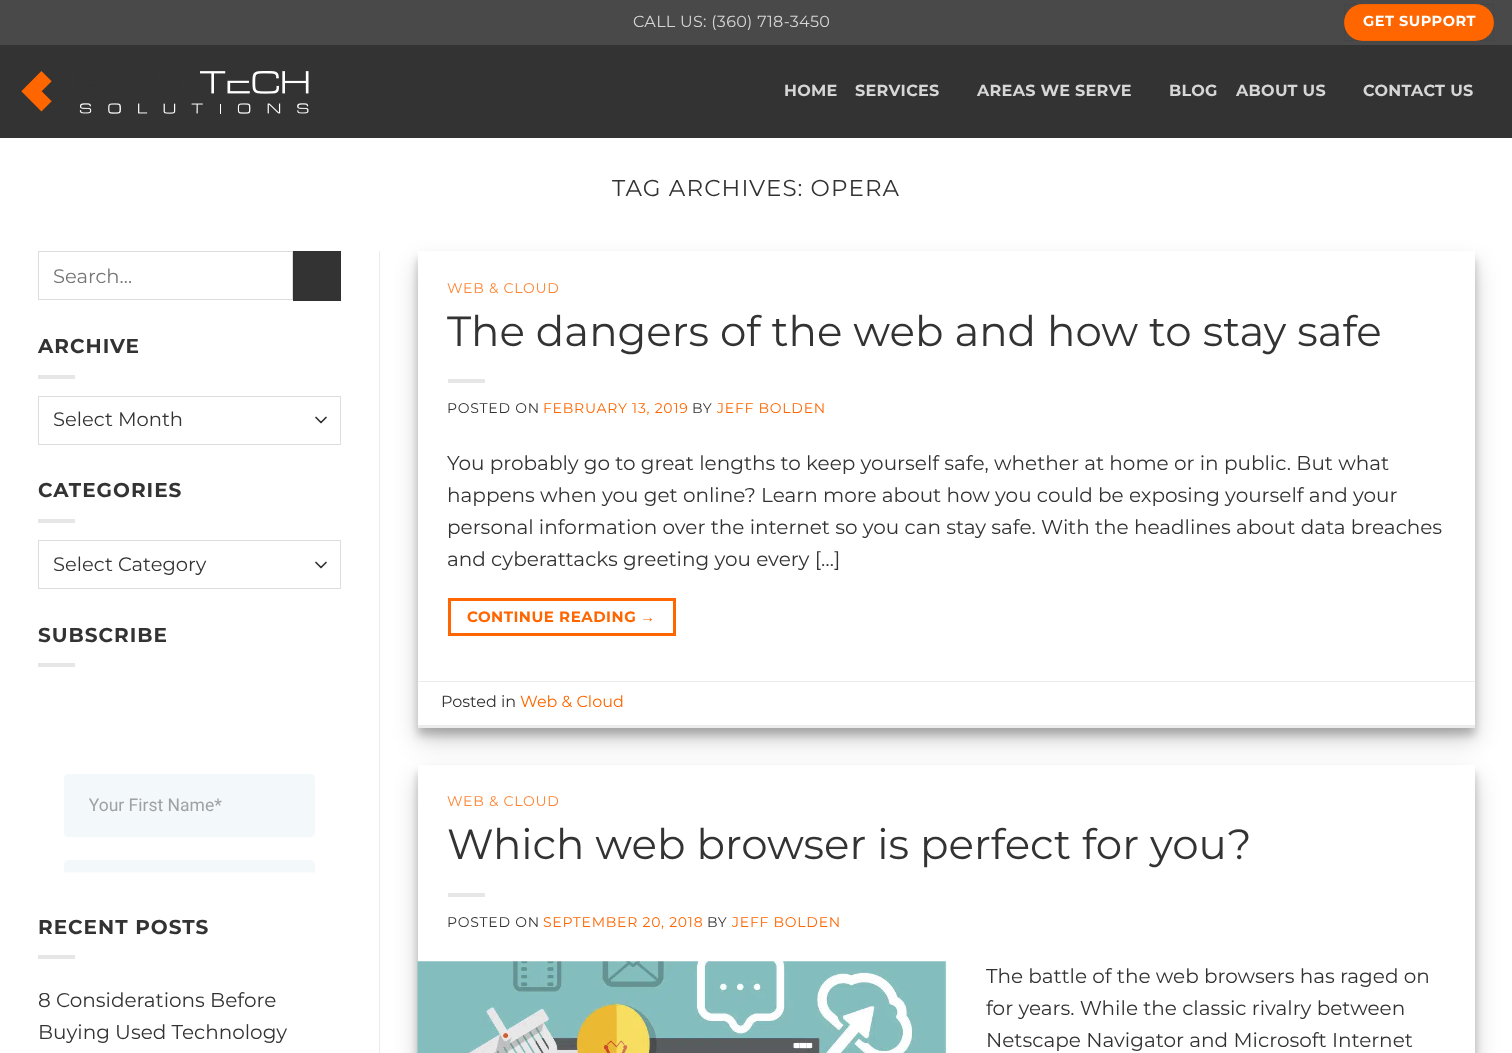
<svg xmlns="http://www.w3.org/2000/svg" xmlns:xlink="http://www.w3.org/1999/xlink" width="1512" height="1053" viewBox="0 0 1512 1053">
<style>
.cls-1{font:16px Montserrat;letter-spacing:0.3px;fill:#d6d6d6}
.cls-2{font:bold 14.5px Montserrat;letter-spacing:0.5px;fill:#ffffff}
.cls-3{font:bold 16px Montserrat;letter-spacing:0.3px;fill:#d6d6d6}
.cls-4{font:23px Montserrat;letter-spacing:1.1px;fill:#333333}
.cls-5{font:19.5px Montserrat;fill:#757575}
.cls-6{font:bold 20px Montserrat;letter-spacing:1px;fill:#333333}
.cls-7{font:19.5px Montserrat;fill:#333333}
.cls-8{font:20px Montserrat;fill:#333333}
.cls-9{font:14px Montserrat;letter-spacing:0.75px;fill:#ff8533}
.cls-10{font:42px Montserrat;fill:#333333}
.cls-11{font:14px Montserrat;letter-spacing:0.75px;fill:#333333}
.cls-12{font:14px Montserrat;letter-spacing:0.75px;fill:#ff6600}
.cls-13{font:bold 15px Montserrat;letter-spacing:0.5px;fill:#ff6600}
.cls-14{font:bold 15px Liberation Sans;letter-spacing:0.5px;fill:#ff6600}
.cls-15{font:16px Montserrat;fill:#333333}
.cls-16{font:16px Montserrat;fill:#ff6600}
</style>
<defs>
<clipPath id="clip1"><path d="M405 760H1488V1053H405ZM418 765H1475V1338H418Z" clip-rule="evenodd"/></clipPath>
<clipPath id="clip2"><path d="M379 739H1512V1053H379ZM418 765H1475V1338H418Z" clip-rule="evenodd"/></clipPath>
</defs>
<rect width="100%" height="100%" fill="#ffffff"/>
<rect fill="#494949" x="0" y="0" width="1512" height="45"/>
<rect fill="#ff6600" x="1344" y="4" width="150" height="37" rx="18.5"/>
<rect fill="none" stroke="#000000" stroke-opacity="0.05" x="1344.5" y="4.5" width="149" height="36"/>
<rect fill="#333333" x="0" y="45" width="1512" height="93"/>
<image xlink:href="image0.png" x="21" y="71" width="288" height="43"/>
<rect fill="none" stroke="#dddddd" x="38.5" y="251.5" width="254" height="48"/>
<rect fill="#333333" stroke="#303030" x="293.5" y="251.5" width="47" height="49"/>
<rect fill="#e6e6e6" x="38" y="375" width="37" height="4"/>
<path fill="none" stroke="#333333" stroke-width="1.7" stroke-linecap="round" stroke-linejoin="round" d="M316 417.5L321 422.5L326 417.5"/>
<rect fill="none" stroke="#dddddd" x="38.5" y="396.5" width="302" height="48"/>
<rect fill="#e6e6e6" x="38" y="519" width="37" height="4"/>
<path fill="none" stroke="#333333" stroke-width="1.7" stroke-linecap="round" stroke-linejoin="round" d="M316 562.5L321 567.5L326 562.5"/>
<rect fill="none" stroke="#dddddd" x="38.5" y="540.5" width="302" height="48"/>
<rect fill="#e6e6e6" x="38" y="663" width="37" height="4"/>
<image xlink:href="image1.png" x="64" y="774" width="251" height="99"/>
<rect fill="#e6e6e6" x="38" y="955" width="37" height="4"/>
<rect fill="#ececec" x="379" y="251" width="1" height="802"/>
<rect fill="#000000" fill-opacity="0.22" filter="blur(4px)" x="418" y="259" width="1057" height="476"/>
<rect fill="#000000" fill-opacity="0.19" filter="blur(12.5px)" x="418" y="264" width="1057" height="476"/>
<rect fill="#ffffff" x="418" y="251" width="1057" height="474"/>
<rect fill="#e6e6e6" x="448" y="379" width="37" height="4"/>
<rect fill="none" stroke="#ff6600" stroke-width="3" x="449.5" y="599.5" width="225" height="35"/>
<rect fill="#ececec" x="418" y="681" width="1057" height="1"/>
<rect fill="#ececec" x="418" y="725" width="1057" height="3"/>
<g clip-path="url(#clip1)">
<rect fill="#000000" fill-opacity="0.22" filter="blur(4px)" x="418" y="773" width="1057" height="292"/>
</g>
<g clip-path="url(#clip2)">
<rect fill="#000000" fill-opacity="0.19" filter="blur(12.5px)" x="418" y="778" width="1057" height="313"/>
</g>
<rect fill="#e6e6e6" x="448" y="893" width="37" height="4"/>
<image xlink:href="image2.png" x="417" y="961" width="530" height="92"/>
<text class="cls-1" x="633" y="27">CALL US: (360) 718-3450</text>
<text class="cls-2" x="1363" y="26">GET SUPPORT</text>
<text class="cls-3" x="784" y="96">HOME</text>
<text class="cls-3" x="855" y="96">SERVICES</text>
<text class="cls-3" x="977" y="96">AREAS WE SERVE</text>
<text class="cls-3" x="1169" y="96">BLOG</text>
<text class="cls-3" x="1236" y="96">ABOUT US</text>
<text class="cls-3" x="1363" y="96">CONTACT US</text>
<text class="cls-4" x="612" y="196">TAG ARCHIVES: OPERA</text>
<text class="cls-5" x="53" y="283">Search…</text>
<text class="cls-6" x="38" y="353">ARCHIVE</text>
<text class="cls-7" x="53" y="426">Select Month</text>
<text class="cls-6" x="38" y="497">CATEGORIES</text>
<text class="cls-7" x="53" y="571">Select Category</text>
<text class="cls-6" x="38" y="642">SUBSCRIBE</text>
<text class="cls-6" x="38" y="934">RECENT POSTS</text>
<text class="cls-8"><tspan x="38" y="1007">8 Considerations Before</tspan><tspan x="38" y="1039">Buying Used Technology</tspan></text>
<text class="cls-9" x="447" y="293">WEB &amp; CLOUD</text>
<text class="cls-10" x="447" y="346">The dangers of the web and how to stay safe</text>
<text class="cls-11" x="447" y="413">POSTED ON</text>
<text class="cls-12" x="543" y="413">FEBRUARY 13, 2019</text>
<text class="cls-11" x="692" y="413">BY</text>
<text class="cls-12" x="717" y="413">JEFF BOLDEN</text>
<text class="cls-8"><tspan x="447" y="470">You probably go to great lengths to keep yourself safe, whether at home or in public. But what</tspan><tspan x="447" y="502">happens when you get online? Learn more about how you could be exposing yourself and your</tspan><tspan x="447" y="534">personal information over the internet so you can stay safe. With the headlines about data breaches</tspan><tspan x="447" y="566">and cyberattacks greeting you every […]</tspan></text>
<text class="cls-13" x="467" y="622">CONTINUE READING</text>
<text class="cls-14" x="640" y="622">→</text>
<text class="cls-15" x="441" y="707">Posted in</text>
<text class="cls-16" x="520" y="707">Web &amp; Cloud</text>
<text class="cls-9" x="447" y="806">WEB &amp; CLOUD</text>
<text class="cls-10" x="447" y="859">Which web browser is perfect for you?</text>
<text class="cls-11" x="447" y="927">POSTED ON</text>
<text class="cls-12" x="543" y="927">SEPTEMBER 20, 2018</text>
<text class="cls-11" x="707" y="927">BY</text>
<text class="cls-12" x="732" y="927">JEFF BOLDEN</text>
<text class="cls-8"><tspan x="986" y="983">The battle of the web browsers has raged on</tspan><tspan x="986" y="1015">for years. While the classic rivalry between</tspan><tspan x="986" y="1047">Netscape Navigator and Microsoft Internet</tspan></text>
</svg>
